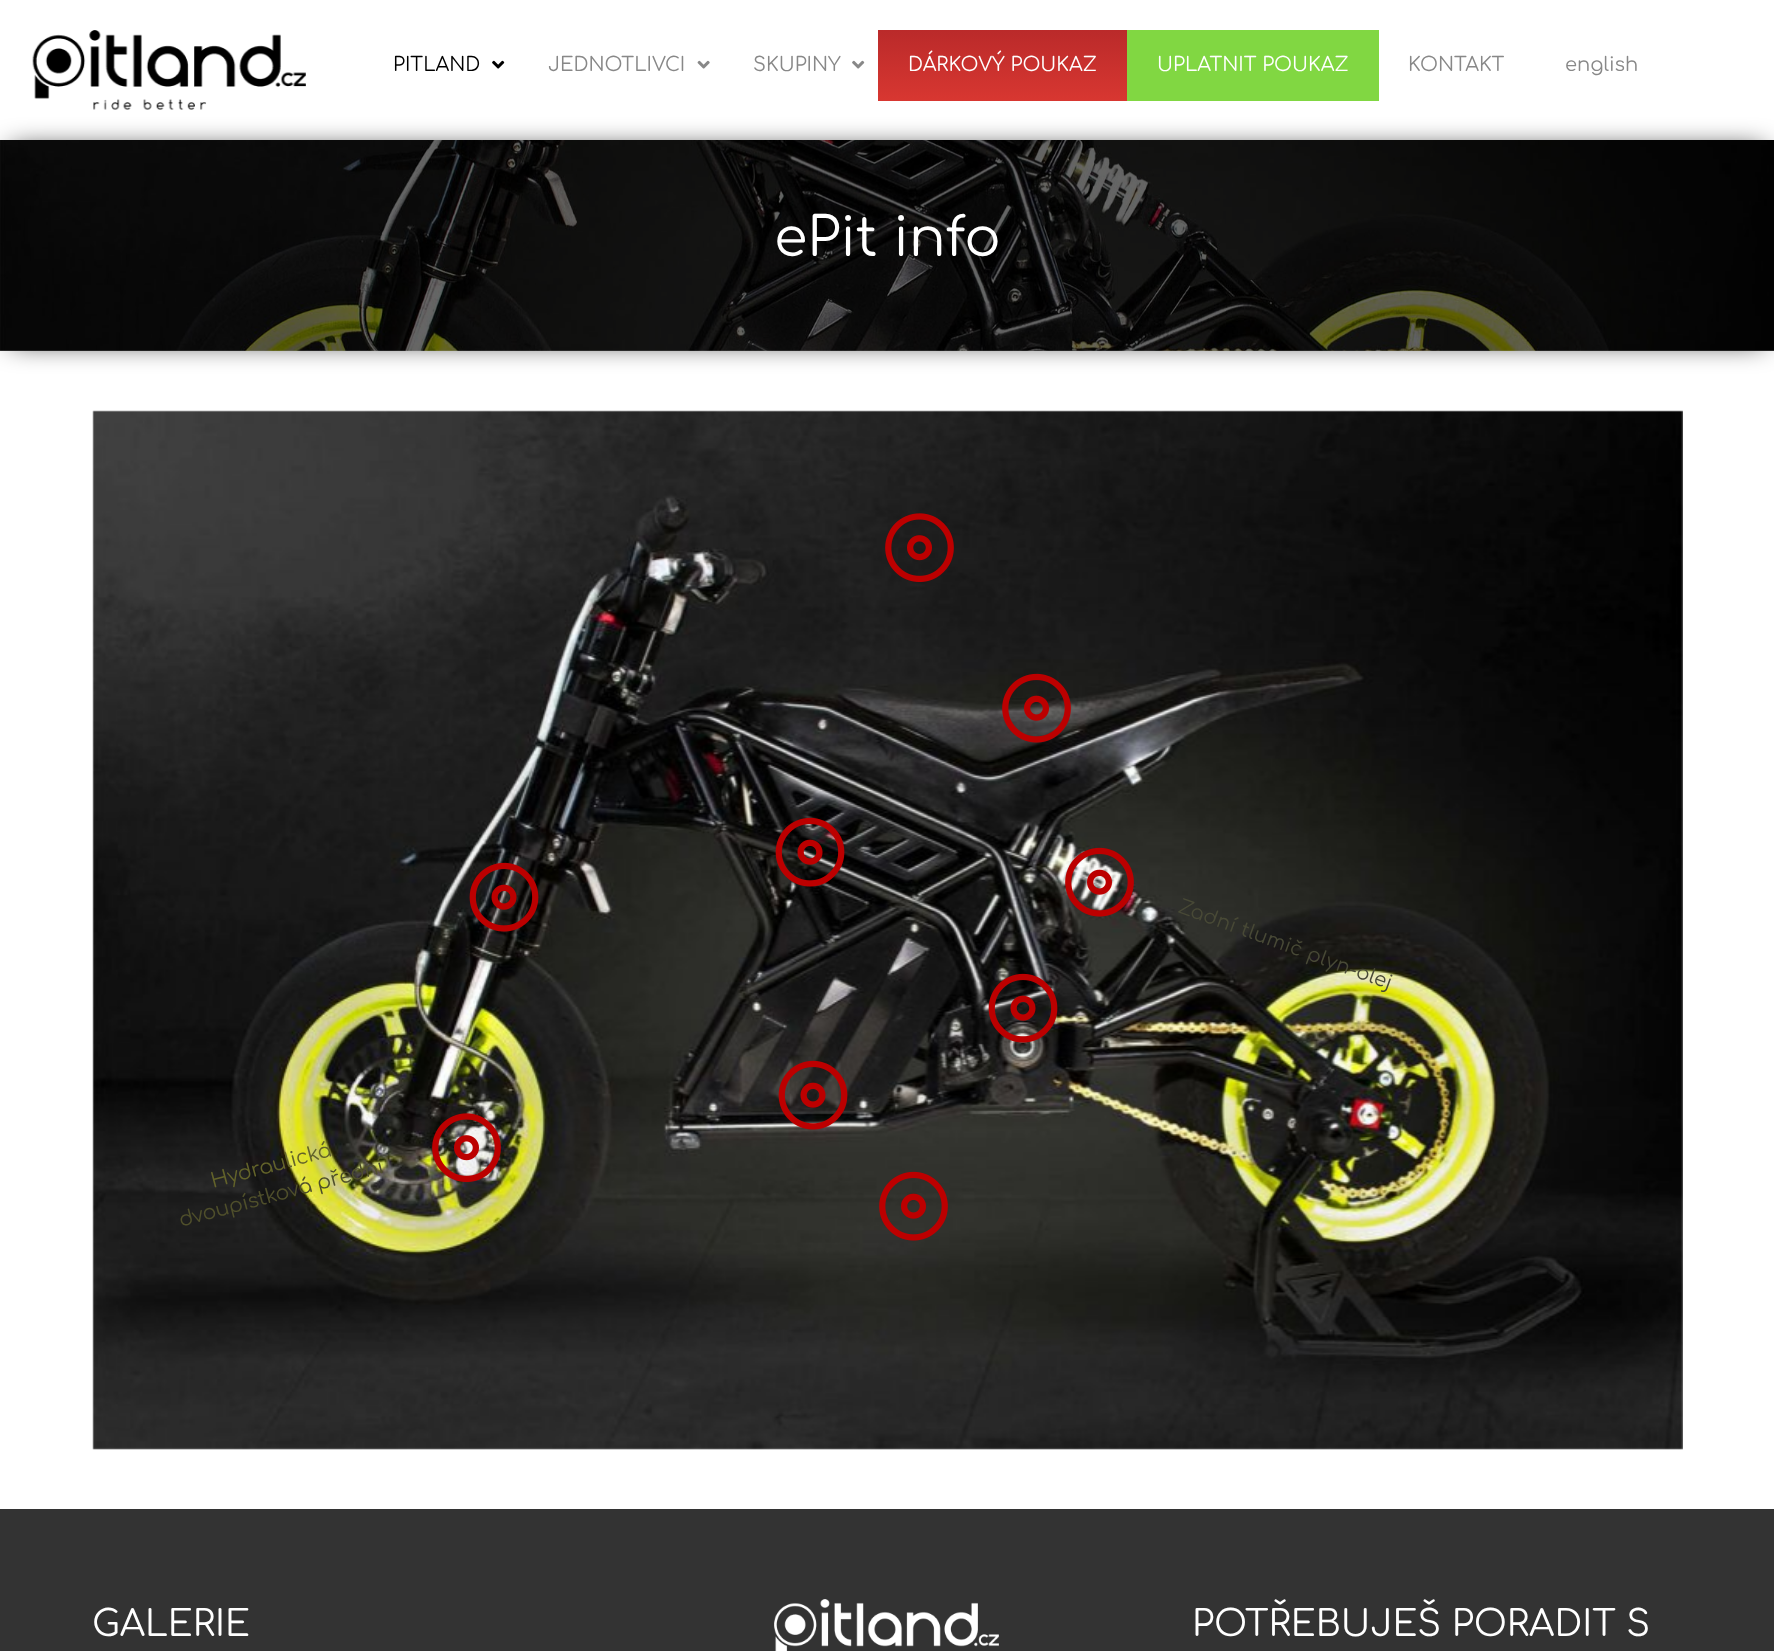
<svg xmlns="http://www.w3.org/2000/svg" xmlns:xlink="http://www.w3.org/1999/xlink" width="1774" height="1651" viewBox="0 0 1774 1651">
<style>
.cls-1{font:19.5px Comfortaa;fill:#000000}
.cls-2{font:19.5px Comfortaa;fill:#888888}
.cls-3{font:19.5px Comfortaa;fill:#ffffff}
.cls-4{font:54px Comfortaa;fill:#ffffff}
.cls-5{font:19.75px Comfortaa;letter-spacing:0.25px;fill:#484936}
.cls-6{font:20.4px Comfortaa;letter-spacing:-0.3px;fill:#63632a}
.cls-7{font:20.4px Comfortaa;letter-spacing:-0.3px;fill:#4f4f2b}
.cls-8{font:36px Comfortaa;fill:#ffffff}
</style>
<defs>
<linearGradient id="g1" gradientUnits="userSpaceOnUse" x1="1002" y1="30" x2="1002" y2="101"><stop offset="0" stop-color="#ba2a2a"/><stop offset="1" stop-color="#d83731"/></linearGradient>
</defs>
<rect width="100%" height="100%" fill="#ffffff"/>
<image xlink:href="image0.png" x="32" y="30" width="274" height="80"/>
<image xlink:href="image1.png" x="492" y="60" width="13" height="9"/>
<image xlink:href="image2.png" x="697" y="60" width="13" height="9"/>
<image xlink:href="image3.png" x="852" y="60" width="13" height="9"/>
<rect fill="url(#g1)" x="878" y="30" width="249" height="71"/>
<rect fill="#81d742" x="1127" y="30" width="252" height="71"/>
<rect fill="#000000" filter="blur(14px)" x="11" y="150" width="1753" height="191"/>
<image xlink:href="image4.png" x="0" y="140" width="1774" height="211"/>
<image xlink:href="image5.png" x="92" y="410" width="1591" height="1040"/>
<image xlink:href="image6.png" x="885" y="513" width="69" height="69"/>
<image xlink:href="image7.png" x="1002" y="673" width="69" height="70"/>
<image xlink:href="image8.png" x="775" y="817" width="70" height="70"/>
<image xlink:href="image9.png" x="469" y="862" width="70" height="70"/>
<image xlink:href="image10.png" x="1065" y="847" width="69" height="70"/>
<image xlink:href="image11.png" x="988" y="973" width="70" height="70"/>
<image xlink:href="image12.png" x="778" y="1060" width="70" height="70"/>
<image xlink:href="image13.png" x="432" y="1113" width="69" height="69"/>
<image xlink:href="image14.png" x="879" y="1171" width="69" height="70"/>
<rect fill="#333333" x="0" y="1509" width="1774" height="142"/>
<image xlink:href="image15.png" x="774" y="1599" width="225" height="52"/>
<text class="cls-1" x="393" y="71">PITLAND</text>
<text class="cls-2" x="548" y="71">JEDNOTLIVCI</text>
<text class="cls-2" x="753" y="71">SKUPINY</text>
<text class="cls-3" x="908" y="71">DÁRKOVÝ POUKAZ</text>
<text class="cls-3" x="1157" y="71">UPLATNIT POUKAZ</text>
<text class="cls-2" x="1408" y="71">KONTAKT</text>
<text class="cls-2" x="1565" y="71">english</text>
<text class="cls-4" x="774" y="256">ePit info</text>
<text class="cls-5" x="1177" y="912" transform="rotate(20.1 1177 912)">Zadní tlumič plyn-olej</text>
<text class="cls-6" x="213" y="1188" transform="rotate(-15 213 1188)">Hydraulická</text>
<text class="cls-7" x="181" y="1227" transform="rotate(-15 181 1227)">dvoupístková přední</text>
<text class="cls-8" x="92" y="1636">GALERIE</text>
<text class="cls-8" x="1192" y="1636">POTŘEBUJEŠ PORADIT S</text>
</svg>
